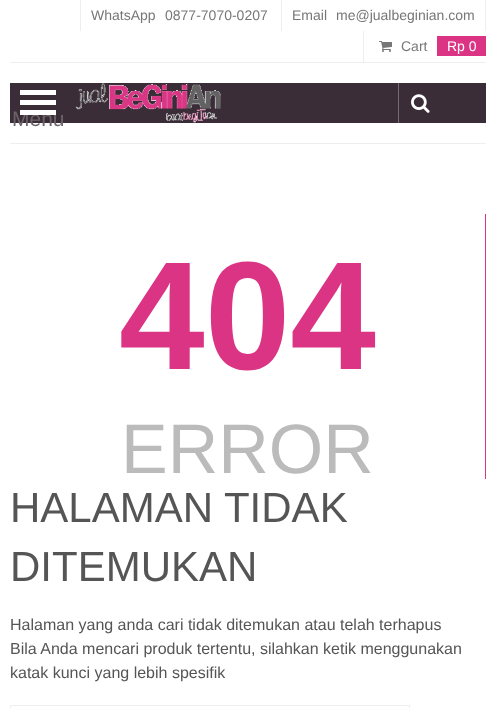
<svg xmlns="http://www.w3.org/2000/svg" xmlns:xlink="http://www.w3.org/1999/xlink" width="496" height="708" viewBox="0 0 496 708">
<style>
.cls-1{font:14px Liberation Sans;fill:#777777}
.cls-2{font:14px Liberation Sans;fill:#ffffff}
.cls-3{font:21px Liberation Sans;fill:#6c636a}
.cls-4{font:bold 154px Liberation Sans;fill:#db3484}
.cls-5{font:70px Liberation Sans;fill:#bbbbbb}
.cls-6{font:42px Liberation Sans;fill:#555555}
.cls-7{font:16px Liberation Sans;fill:#555555}
</style>
<rect width="100%" height="100%" fill="#ffffff"/>
<rect fill="#eeeeee" x="10" y="143" width="476" height="1"/>
<rect fill="#eeeeee" x="10" y="62" width="476" height="1"/>
<rect fill="#eeeeee" x="485" y="0" width="1" height="31"/>
<rect fill="#eeeeee" x="80" y="0" width="1" height="31"/>
<rect fill="#eeeeee" x="281" y="0" width="1" height="31"/>
<rect fill="#eeeeee" x="363" y="31" width="1" height="31"/>
<image xlink:href="image0.png" x="379" y="41" width="13" height="11"/>
<rect fill="#db3484" x="437" y="36" width="49" height="20"/>
<rect fill="#3a2d37" x="10" y="83" width="476" height="40"/>
<rect fill="#ffffff" x="20" y="90" width="36" height="5"/>
<rect fill="#ffffff" x="20" y="100" width="36" height="5"/>
<image xlink:href="image1.png" x="75" y="83" width="146" height="40"/>
<rect fill="#756c73" x="398" y="83" width="1" height="40"/>
<image xlink:href="image2.png" x="411" y="94" width="19" height="19"/>
<rect fill="#db3484" x="485" y="214" width="1" height="265"/>
<rect fill="none" stroke="#eeeeee" x="10.5" y="705.5" width="399" height="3"/>
<text class="cls-1" x="91" y="20">WhatsApp</text>
<text class="cls-1" x="165" y="20">0877-7070-0207</text>
<text class="cls-1" x="292" y="20">Email</text>
<text class="cls-1" x="336" y="20">me@jualbeginian.com</text>
<text class="cls-1" x="401" y="51">Cart</text>
<text class="cls-2" x="447" y="51">Rp 0</text>
<text class="cls-3" x="12" y="126">Menu</text>
<rect fill="#ffffff" x="20" y="110" width="36" height="5"/>
<text class="cls-4" x="119" y="369">404</text>
<text class="cls-5" x="121" y="473">ERROR</text>
<text class="cls-6"><tspan x="10" y="522">HALAMAN TIDAK</tspan><tspan x="10" y="581">DITEMUKAN</tspan></text>
<text class="cls-7"><tspan x="10" y="630">Halaman yang anda cari tidak ditemukan atau telah terhapus</tspan><tspan x="10" y="654">Bila Anda mencari produk tertentu, silahkan ketik menggunakan</tspan><tspan x="10" y="678">katak kunci yang lebih spesifik</tspan></text>
</svg>
